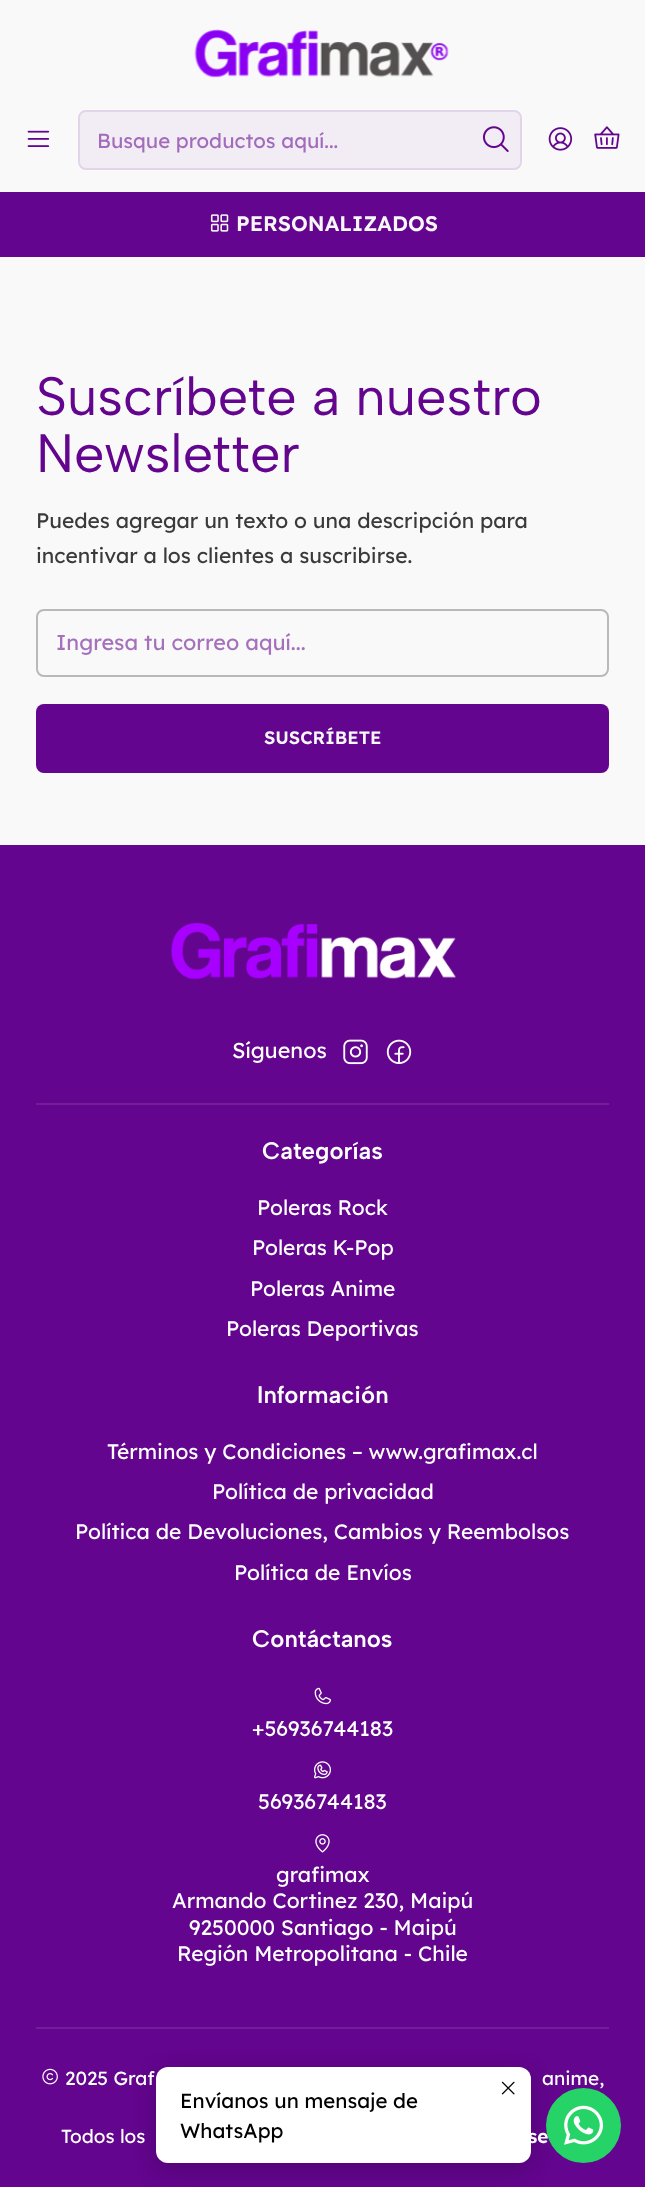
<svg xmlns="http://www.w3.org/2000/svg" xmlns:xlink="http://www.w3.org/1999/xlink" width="645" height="2187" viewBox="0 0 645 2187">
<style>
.cls-1{font:20.4px Lexend;fill:#a26bbb}
.cls-2{font:600 21px Lexend;fill:#f7f7f7}
.cls-3{font:54px Albert Sans;fill:#63058e}
.cls-4{font:21px Lexend;fill:#3b3a3a}
.cls-5{font:21.6px Lexend;fill:#a571bd}
.cls-6{font:600 18px Lexend;fill:#f7f7f7}
.cls-7{font:21.6px Lexend;fill:#ffffff}
.cls-8{font:600 24px Albert Sans;fill:#ffffff}
.cls-9{font:21px Lexend;fill:#ffffff}
.cls-10{font:19px Lexend;fill:#ffffff}
.cls-11{font:600 19px Lexend;fill:#ffffff}
.cls-12{font:20.4px Lexend;fill:#000000}
</style>
<rect width="100%" height="100%" fill="#f9f9f9"/>
<image xlink:href="image0.png" x="194" y="29" width="255" height="49"/>
<image xlink:href="image1.png" x="27" y="130" width="23" height="17"/>
<rect fill="#f2edf4" x="78" y="110" width="444" height="60" rx="8"/>
<rect fill="none" stroke="#63058e" stroke-opacity="0.1" stroke-width="2" x="79" y="111" width="442" height="58" rx="7"/>
<image xlink:href="image2.png" x="482" y="126" width="27" height="26"/>
<image xlink:href="image3.png" x="548" y="127" width="25" height="24"/>
<image xlink:href="image4.png" x="594" y="126" width="26" height="23"/>
<rect fill="#63058e" x="0" y="192" width="645" height="65"/>
<image xlink:href="image5.png" x="210" y="214" width="19" height="18"/>
<rect fill="none" stroke="#b9b9b9" stroke-width="2" x="37" y="610" width="571" height="66" rx="7"/>
<rect fill="#63058e" x="36" y="704" width="573" height="69" rx="8"/>
<rect fill="#63058e" x="0" y="845" width="645" height="1342"/>
<image xlink:href="image6.png" x="171" y="922" width="285" height="58"/>
<image xlink:href="image7.png" x="343" y="1039" width="25" height="26"/>
<image xlink:href="image8.png" x="386" y="1039" width="26" height="25"/>
<rect fill="#731e99" x="36" y="1103" width="573" height="2"/>
<image xlink:href="image9.png" x="314" y="1687" width="17" height="18"/>
<image xlink:href="image10.png" x="314" y="1761" width="17" height="18"/>
<image xlink:href="image11.png" x="315" y="1834" width="15" height="19"/>
<rect fill="#731e99" x="36" y="2027" width="573" height="2"/>
<image xlink:href="image12.png" x="42" y="2068" width="16" height="17"/>
<rect fill="#000000" fill-opacity="0.2" filter="blur(11px)" x="156" y="2073" width="375" height="96" rx="12"/>
<rect fill="#ffffff" x="156" y="2067" width="375" height="96" rx="12"/>
<image xlink:href="image13.png" x="501" y="2081" width="14" height="14"/>
<text class="cls-1" x="97" y="148">Busque productos aquí...</text>
<text class="cls-2" x="236" y="231">PERSONALIZADOS</text>
<text class="cls-3"><tspan x="36" y="415">Suscríbete a nuestro</tspan><tspan x="36" y="472">Newsletter</tspan></text>
<text class="cls-4"><tspan x="36" y="528">Puedes agregar un texto o una descripción para</tspan><tspan x="36" y="563">incentivar a los clientes a suscribirse.</tspan></text>
<text class="cls-5" x="56" y="650">Ingresa tu correo aquí...</text>
<text class="cls-6" x="264" y="744">SUSCRÍBETE</text>
<text class="cls-7" x="232" y="1058">Síguenos</text>
<text class="cls-8" x="262" y="1159">Categorías</text>
<text class="cls-9" x="257" y="1215">Poleras Rock</text>
<text class="cls-9" x="252" y="1255">Poleras K-Pop</text>
<text class="cls-9" x="250" y="1296">Poleras Anime</text>
<text class="cls-9" x="226" y="1336">Poleras Deportivas</text>
<text class="cls-8" x="257" y="1403">Información</text>
<text class="cls-9" x="107" y="1459">Términos y Condiciones – www.grafimax.cl</text>
<text class="cls-9" x="212" y="1499">Política de privacidad</text>
<text class="cls-9" x="75" y="1539">Política de Devoluciones, Cambios y Reembolsos</text>
<text class="cls-9" x="234" y="1580">Política de Envíos</text>
<text class="cls-8" x="252" y="1647">Contáctanos</text>
<text class="cls-9" x="252" y="1736">+56936744183</text>
<text class="cls-9" x="258" y="1809">56936744183</text>
<text class="cls-9" x="276" y="1882">grafimax</text>
<text class="cls-9" x="172" y="1908">Armando Cortinez 230, Maipú</text>
<text class="cls-9" x="189" y="1935">9250000 Santiago - Maipú</text>
<text class="cls-9" x="177" y="1961">Región Metropolitana - Chile</text>
<text class="cls-10" x="65" y="2085">2025 Graf</text>
<text class="cls-10" x="542" y="2085">anime,</text>
<text class="cls-10" x="61" y="2143">Todos los</text>
<text class="cls-11" x="528" y="2143">se</text>
<text class="cls-12"><tspan x="180" y="2108">Envíanos un mensaje de</tspan><tspan x="180" y="2138">WhatsApp</tspan></text>
<circle fill="#25d366" cx="583.5" cy="2125.5" r="37.5"/>
<image xlink:href="image14.png" x="564" y="2105" width="39" height="40"/>
</svg>
